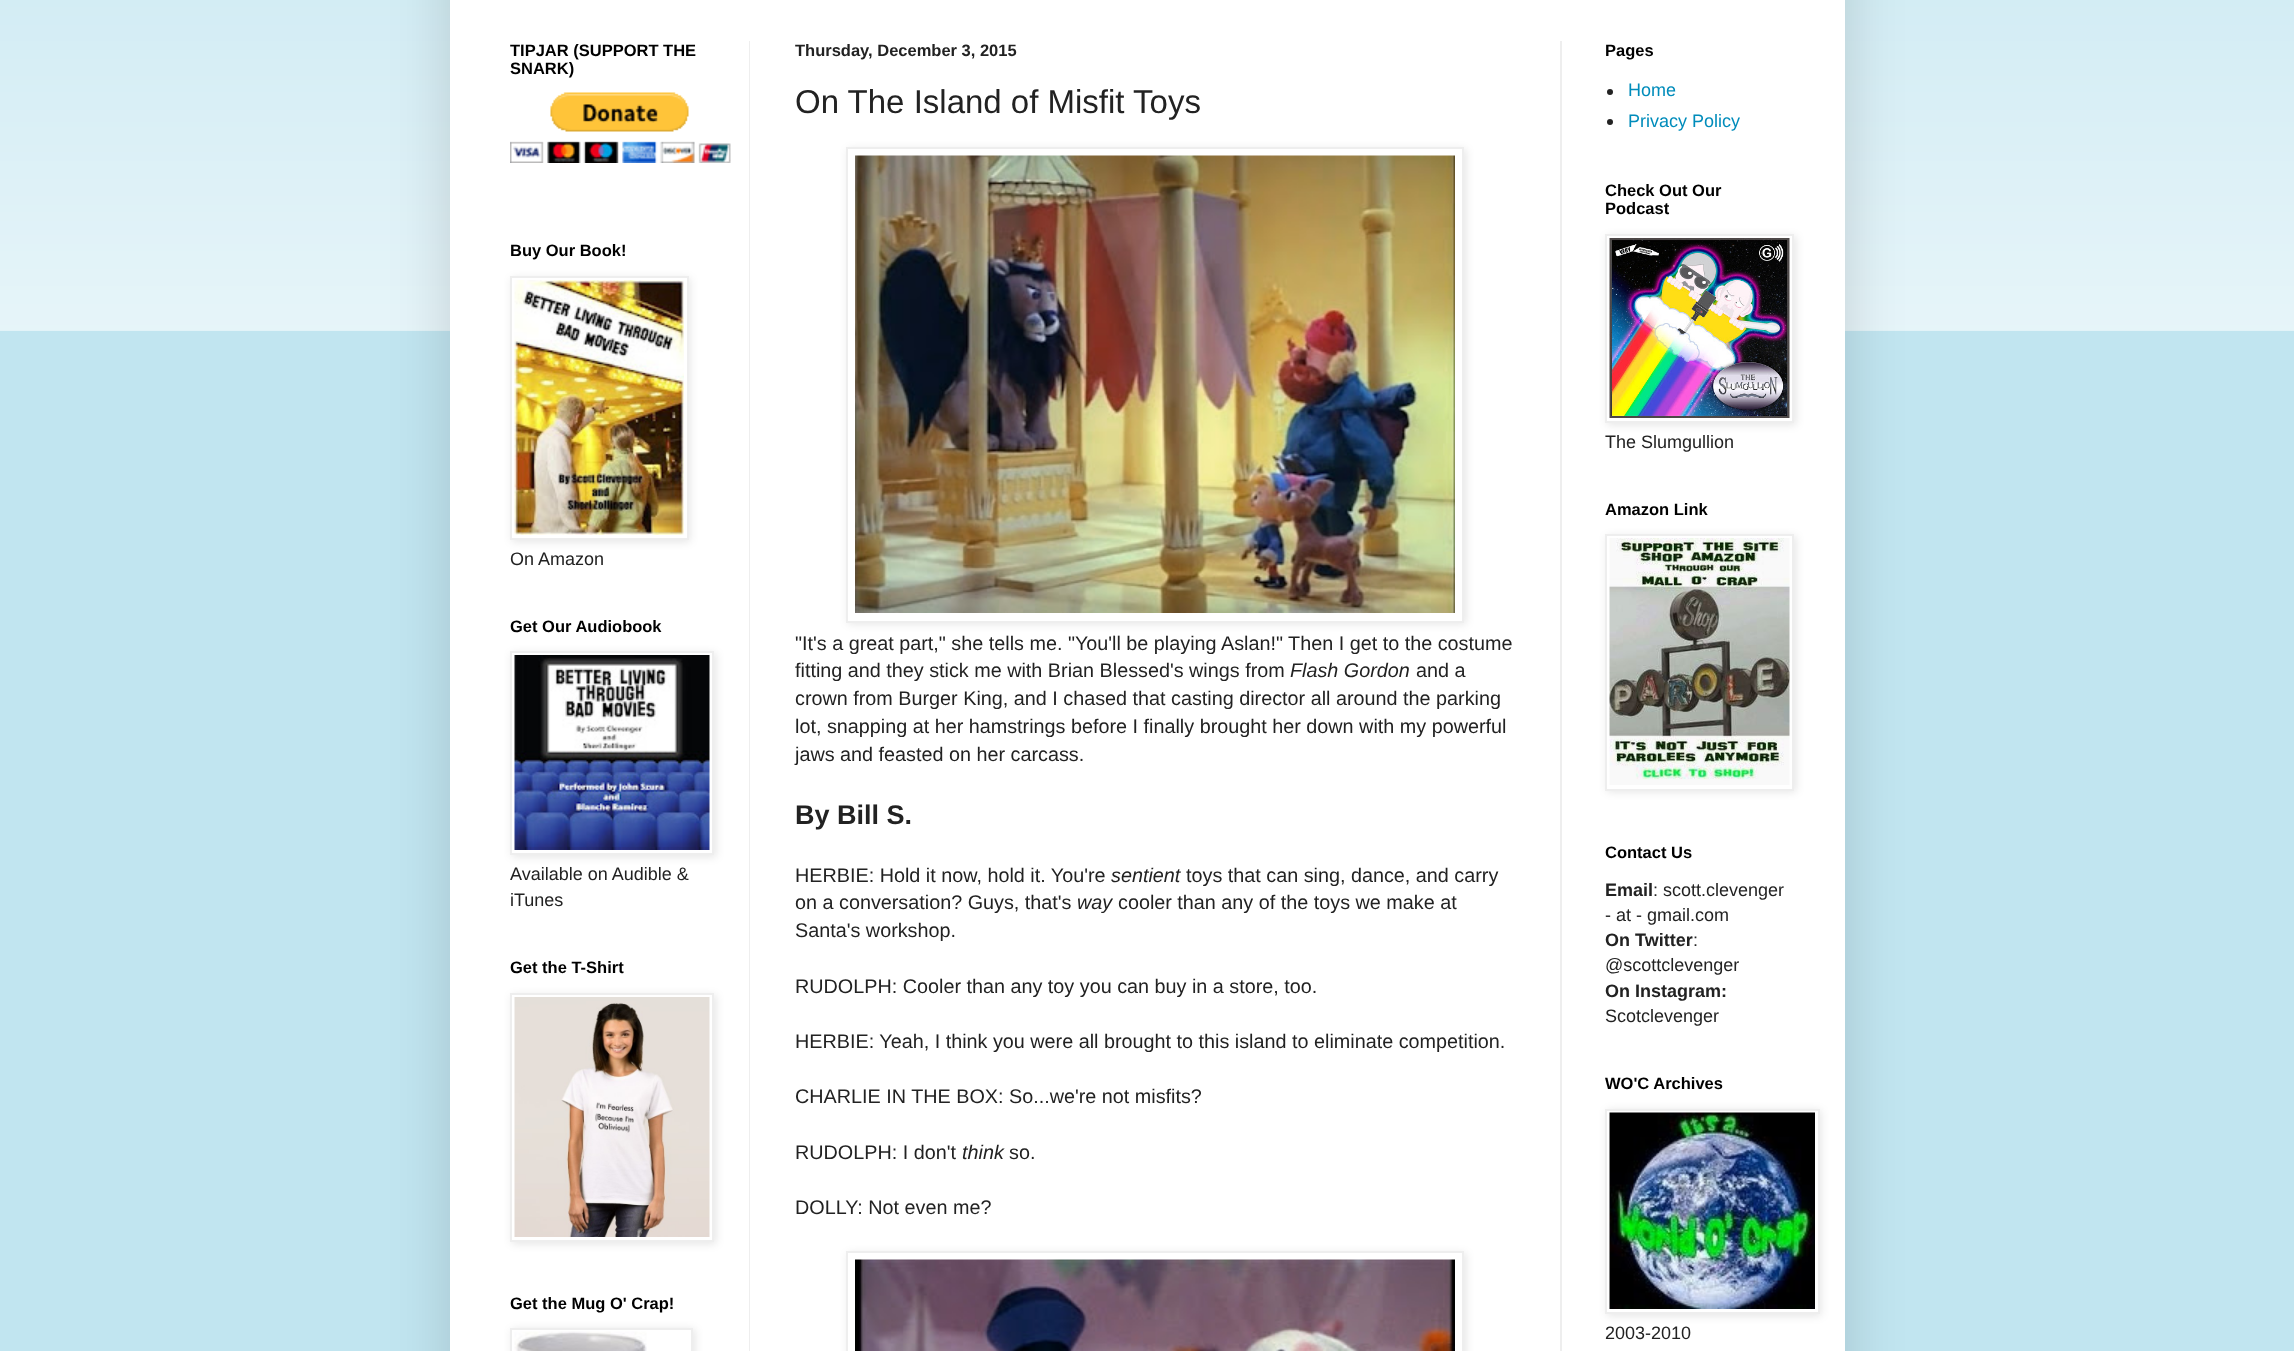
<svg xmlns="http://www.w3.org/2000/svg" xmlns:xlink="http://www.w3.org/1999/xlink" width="2294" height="1351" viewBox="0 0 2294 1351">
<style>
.cls-1{font:bold 16.5px Liberation Sans;fill:#000000}
.cls-2{font:18px Liberation Sans;fill:#222222}
.cls-3{font:bold 16.5px Liberation Sans;fill:#222222}
.cls-4{font:33px Liberation Sans;fill:#222222}
.cls-5{font:19.8px Liberation Sans;fill:#222222}
.cls-6{font:italic 19.8px Liberation Sans;fill:#222222}
.cls-7{font:bold 27px Liberation Sans;fill:#222222}
.cls-8{font:18px Liberation Sans;fill:#008cbb}
.cls-9{font:bold 18px Liberation Sans;fill:#222222}
</style>
<defs>
<clipPath id="clip1"><path d="M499 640H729V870H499ZM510 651H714V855H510Z" clip-rule="evenodd"/></clipPath>
<clipPath id="clip2"><path d="M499 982H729V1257H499ZM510 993H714V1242H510Z" clip-rule="evenodd"/></clipPath>
<clipPath id="clip3"><path d="M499 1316H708V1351H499ZM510 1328H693V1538H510Z" clip-rule="evenodd"/></clipPath>
<clipPath id="clip4"><path d="M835 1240H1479V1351H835ZM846 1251H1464V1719H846Z" clip-rule="evenodd"/></clipPath>
<clipPath id="clip5"><path d="M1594 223H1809V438H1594ZM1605 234H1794V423H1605Z" clip-rule="evenodd"/></clipPath>
</defs>
<rect width="100%" height="100%" fill="#c1e5f0"/>
<image xlink:href="image0.png" x="0" y="0" width="2294" height="331"/>
<rect fill="#000000" fill-opacity="0.15" filter="blur(30px)" x="450" y="-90" width="1395" height="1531"/>
<rect fill="#ffffff" x="450" y="0" width="1395" height="1351"/>
<rect fill="#eeeeee" x="749" y="41" width="1" height="1310"/>
<rect fill="#eeeeee" x="1560" y="41" width="2" height="1310"/>
<image xlink:href="image1.png" x="510" y="92" width="221" height="71"/>
<rect fill="#000000" fill-opacity="0.1" filter="blur(4px)" x="512" y="278" width="178" height="264"/>
<rect fill="#ffffff" stroke="#eeeeee" stroke-width="2" x="511" y="277" width="177" height="262"/>
<image xlink:href="image2.png" x="514" y="280" width="170" height="255"/>
<g clip-path="url(#clip1)">
<rect fill="#000000" fill-opacity="0.1" filter="blur(4px)" x="512" y="653" width="204" height="204"/>
</g>
<rect fill="none" stroke="#eeeeee" stroke-width="2" x="511" y="652" width="202" height="202"/>
<image xlink:href="image3.png" x="514" y="655" width="196" height="195"/>
<g clip-path="url(#clip2)">
<rect fill="#000000" fill-opacity="0.1" filter="blur(4px)" x="512" y="995" width="204" height="249"/>
</g>
<rect fill="none" stroke="#eeeeee" stroke-width="2" x="511" y="994" width="202" height="247"/>
<image xlink:href="image4.png" x="514" y="997" width="196" height="240"/>
<g clip-path="url(#clip3)">
<rect fill="#000000" fill-opacity="0.1" filter="blur(4px)" x="512" y="1329" width="183" height="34"/>
</g>
<rect fill="none" stroke="#eeeeee" stroke-width="2" x="511" y="1329" width="181" height="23"/>
<image xlink:href="image5.png" x="514" y="1331" width="133" height="20"/>
<rect fill="#000000" fill-opacity="0.1" filter="blur(4px)" x="848" y="149" width="618" height="475"/>
<rect fill="#ffffff" stroke="#eeeeee" stroke-width="2" x="847" y="148" width="616" height="474"/>
<image xlink:href="image6.png" x="855" y="155" width="600" height="458"/>
<g clip-path="url(#clip4)">
<rect fill="#000000" fill-opacity="0.1" filter="blur(4px)" x="848" y="1253" width="618" height="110"/>
</g>
<rect fill="none" stroke="#eeeeee" stroke-width="2" x="847" y="1252" width="616" height="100"/>
<image xlink:href="image7.png" x="855" y="1259" width="600" height="92"/>
<circle fill="#222222" cx="1610" cy="92" r="3"/>
<circle fill="#222222" cx="1610" cy="122" r="3"/>
<g clip-path="url(#clip5)">
<rect fill="#000000" fill-opacity="0.1" filter="blur(4px)" x="1607" y="236" width="189" height="189"/>
</g>
<rect fill="none" stroke="#eeeeee" stroke-width="2" x="1606" y="235" width="187" height="187"/>
<image xlink:href="image8.png" x="1609" y="238" width="181" height="180"/>
<rect fill="#000000" fill-opacity="0.1" filter="blur(4px)" x="1607" y="536" width="189" height="256"/>
<rect fill="#ffffff" stroke="#eeeeee" stroke-width="2" x="1606" y="535" width="187" height="255"/>
<image xlink:href="image9.png" x="1609" y="538" width="181" height="247"/>
<rect fill="#000000" fill-opacity="0.1" filter="blur(4px)" x="1607" y="1110" width="214" height="206"/>
<rect fill="#ffffff" stroke="#eeeeee" stroke-width="2" x="1606" y="1110" width="213" height="203"/>
<image xlink:href="image10.png" x="1609" y="1112" width="206" height="197"/>
<text class="cls-1"><tspan x="510" y="56">TIPJAR (SUPPORT THE</tspan><tspan x="510" y="74">SNARK)</tspan></text>
<text class="cls-1" x="510" y="256">Buy Our Book!</text>
<text class="cls-2" x="510" y="565">On Amazon</text>
<text class="cls-1" x="510" y="632">Get Our Audiobook</text>
<text class="cls-2"><tspan x="510" y="880">Available on Audible &amp;</tspan><tspan x="510" y="906">iTunes</tspan></text>
<text class="cls-1" x="510" y="973">Get the T-Shirt</text>
<text class="cls-1" x="510" y="1309">Get the Mug O' Crap!</text>
<text class="cls-3" x="795" y="56">Thursday, December 3, 2015</text>
<text class="cls-4" x="795" y="113">On The Island of Misfit Toys</text>
<text class="cls-5"><tspan x="795" y="650">"It's a great part," she tells me. "You'll be playing Aslan!" Then I get to the costume</tspan><tspan x="795" y="677">fitting and they stick me with Brian Blessed's wings from</tspan></text>
<text class="cls-6" x="1290" y="677">Flash Gordon</text>
<text class="cls-5" x="1416" y="677">and a</text>
<text class="cls-5"><tspan x="795" y="705">crown from Burger King, and I chased that casting director all around the parking</tspan><tspan x="795" y="733">lot, snapping at her hamstrings before I finally brought her down with my powerful</tspan><tspan x="795" y="761">jaws and feasted on her carcass.</tspan></text>
<text class="cls-7" x="795" y="824">By Bill S.</text>
<text class="cls-5" x="795" y="882">HERBIE: Hold it now, hold it. You're</text>
<text class="cls-6" x="1111" y="882">sentient</text>
<text class="cls-5" x="1186" y="882">toys that can sing, dance, and carry</text>
<text class="cls-5" x="795" y="909">on a conversation? Guys, that's</text>
<text class="cls-6" x="1077" y="909">way</text>
<text class="cls-5" x="1118" y="909">cooler than any of the toys we make at</text>
<text class="cls-5" x="795" y="937">Santa's workshop.</text>
<text class="cls-5" x="795" y="993">RUDOLPH: Cooler than any toy you can buy in a store, too.</text>
<text class="cls-5" x="795" y="1048">HERBIE: Yeah, I think you were all brought to this island to eliminate competition.</text>
<text class="cls-5" x="795" y="1103">CHARLIE IN THE BOX: So...we're not misfits?</text>
<text class="cls-5" x="795" y="1159">RUDOLPH: I don't</text>
<text class="cls-6" x="962" y="1159">think</text>
<text class="cls-5" x="1009" y="1159">so.</text>
<text class="cls-5" x="795" y="1214">DOLLY: Not even me?</text>
<text class="cls-1" x="1605" y="56">Pages</text>
<text class="cls-8"><tspan x="1628" y="96">Home</tspan><tspan x="1628" y="127">Privacy Policy</tspan></text>
<text class="cls-1"><tspan x="1605" y="196">Check Out Our</tspan><tspan x="1605" y="214">Podcast</tspan></text>
<text class="cls-2" x="1605" y="448">The Slumgullion</text>
<text class="cls-1" x="1605" y="515">Amazon Link</text>
<text class="cls-1" x="1605" y="858">Contact Us</text>
<text class="cls-9" x="1605" y="896">Email</text>
<text class="cls-2" x="1653" y="896">: scott.clevenger</text>
<text class="cls-2" x="1605" y="921">- at - gmail.com</text>
<text class="cls-9" x="1605" y="946">On Twitter</text>
<text class="cls-2" x="1693" y="946">:</text>
<text class="cls-2" x="1605" y="971">@scottclevenger</text>
<text class="cls-9" x="1605" y="997">On Instagram:</text>
<text class="cls-2" x="1605" y="1022">Scotclevenger</text>
<text class="cls-1" x="1605" y="1089">WO'C Archives</text>
<text class="cls-2" x="1605" y="1339">2003-2010</text>
</svg>
